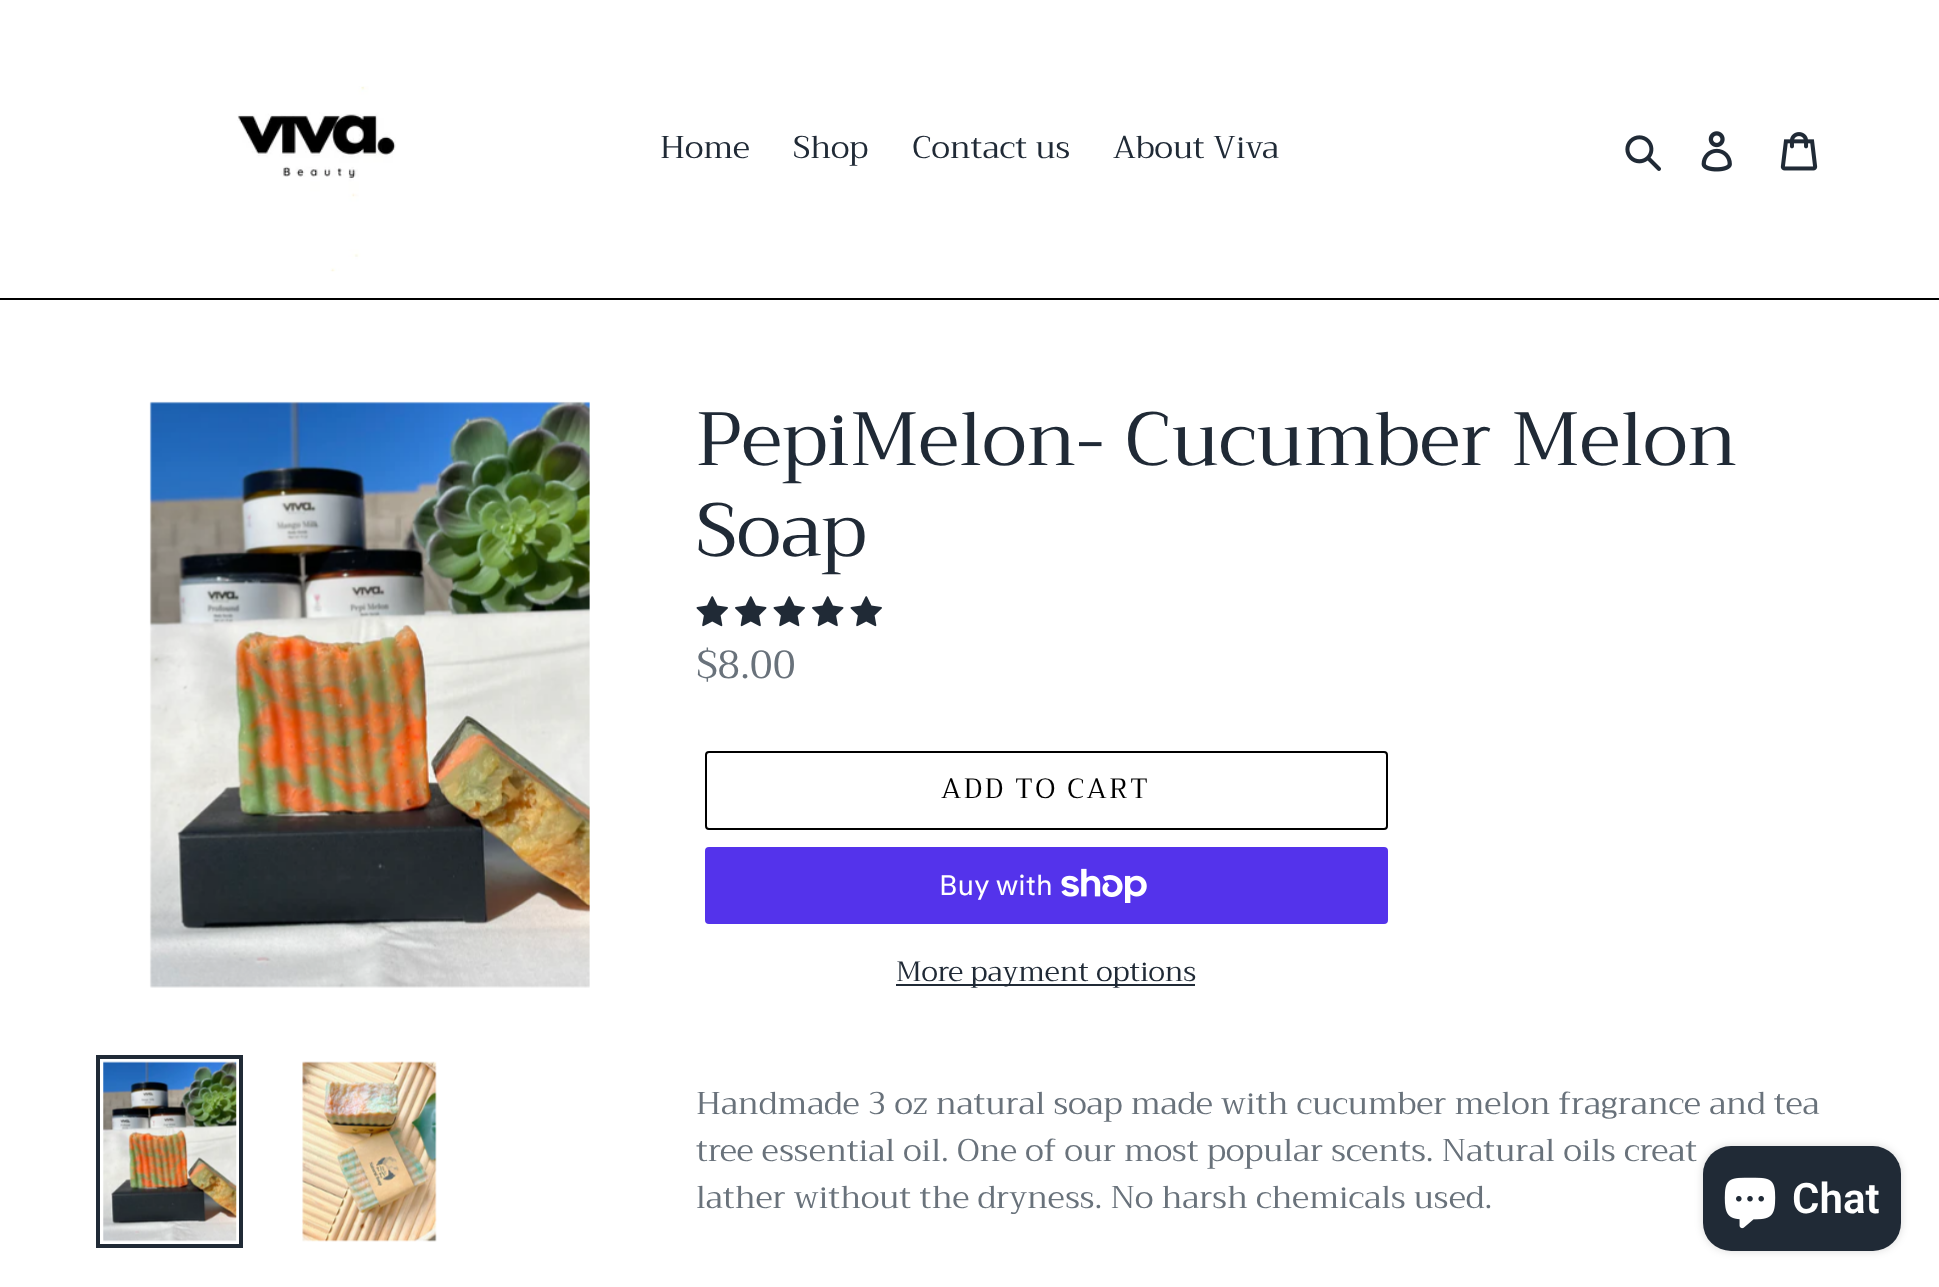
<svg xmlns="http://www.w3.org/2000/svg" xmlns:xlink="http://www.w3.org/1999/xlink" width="1939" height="1287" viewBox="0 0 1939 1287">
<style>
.cls-1{font:31.5px Trirong;fill:#202a36}
.cls-2{font:75.25px Trirong;fill:#202a36}
.cls-3{font:39px Trirong;fill:#69727b}
.cls-4{font:28px Trirong;letter-spacing:2.25px;fill:#000000}
.cls-5{font:28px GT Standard;fill:#ffffff}
.cls-6{font:28px Trirong;fill:#202a36}
.cls-7{font:31.5px Trirong;fill:#69727b}
.cls-8{font:600 42px Roboto;fill:#ffffff}
</style>
<rect width="100%" height="100%" fill="#ffffff"/>
<rect fill="#000000" x="0" y="298" width="1939" height="2"/>
<image xlink:href="image0.png" x="237" y="86" width="159" height="186"/>
<image xlink:href="image1.png" x="1625" y="135" width="36" height="36"/>
<image xlink:href="image2.png" x="1701" y="131" width="31" height="41"/>
<image xlink:href="image3.png" x="1780" y="132" width="38" height="39"/>
<image xlink:href="image4.png" x="149" y="401" width="441" height="587"/>
<rect fill="none" stroke="#202a36" stroke-width="4" x="98" y="1057" width="143" height="189"/>
<image xlink:href="image5.png" x="103" y="1061" width="134" height="181"/>
<image xlink:href="image6.png" x="302" y="1061" width="135" height="181"/>
<image xlink:href="image7.png" x="696" y="596" width="32" height="31"/>
<image xlink:href="image8.png" x="735" y="596" width="32" height="31"/>
<image xlink:href="image7.png" x="773" y="596" width="32" height="31"/>
<image xlink:href="image8.png" x="812" y="596" width="32" height="31"/>
<image xlink:href="image7.png" x="850" y="596" width="32" height="31"/>
<rect fill="none" stroke="#000000" stroke-width="2" x="706" y="752" width="681" height="77" rx="3"/>
<rect fill="#5433eb" x="705" y="847" width="683" height="77" rx="4"/>
<image xlink:href="image9.png" x="1061" y="868" width="86" height="35"/>
<rect fill="#202a36" x="896" y="984" width="299" height="2"/>
<rect fill="#000000" fill-opacity="0.15" filter="blur(4.5px)" x="1703" y="1146" width="198" height="105" rx="28"/>
<rect fill="#202a36" x="1703" y="1146" width="198" height="105" rx="28"/>
<image xlink:href="image10.png" x="1724" y="1177" width="52" height="52"/>
<text class="cls-1" x="660" y="158">Home</text>
<text class="cls-1" x="793" y="158">Shop</text>
<text class="cls-1" x="912" y="158">Contact us</text>
<text class="cls-1" x="1113" y="158">About Viva</text>
<text class="cls-2"><tspan x="696" y="465">PepiMelon- Cucumber Melon</tspan><tspan x="696" y="556">Soap</tspan></text>
<text class="cls-3" x="696" y="678">$8.00</text>
<text class="cls-4" x="941" y="798">ADD TO CART</text>
<text class="cls-5" x="939" y="895">Buy with</text>
<text class="cls-6" x="896" y="981">More payment options</text>
<text class="cls-7"><tspan x="696" y="1114">Handmade 3 oz natural soap made with cucumber melon fragrance and tea</tspan><tspan x="696" y="1161">tree essential oil. One of our most popular scents. Natural oils creat</tspan><tspan x="696" y="1208">lather without the dryness. No harsh chemicals used.</tspan></text>
<text class="cls-8" x="1792" y="1213">Chat</text>
</svg>
